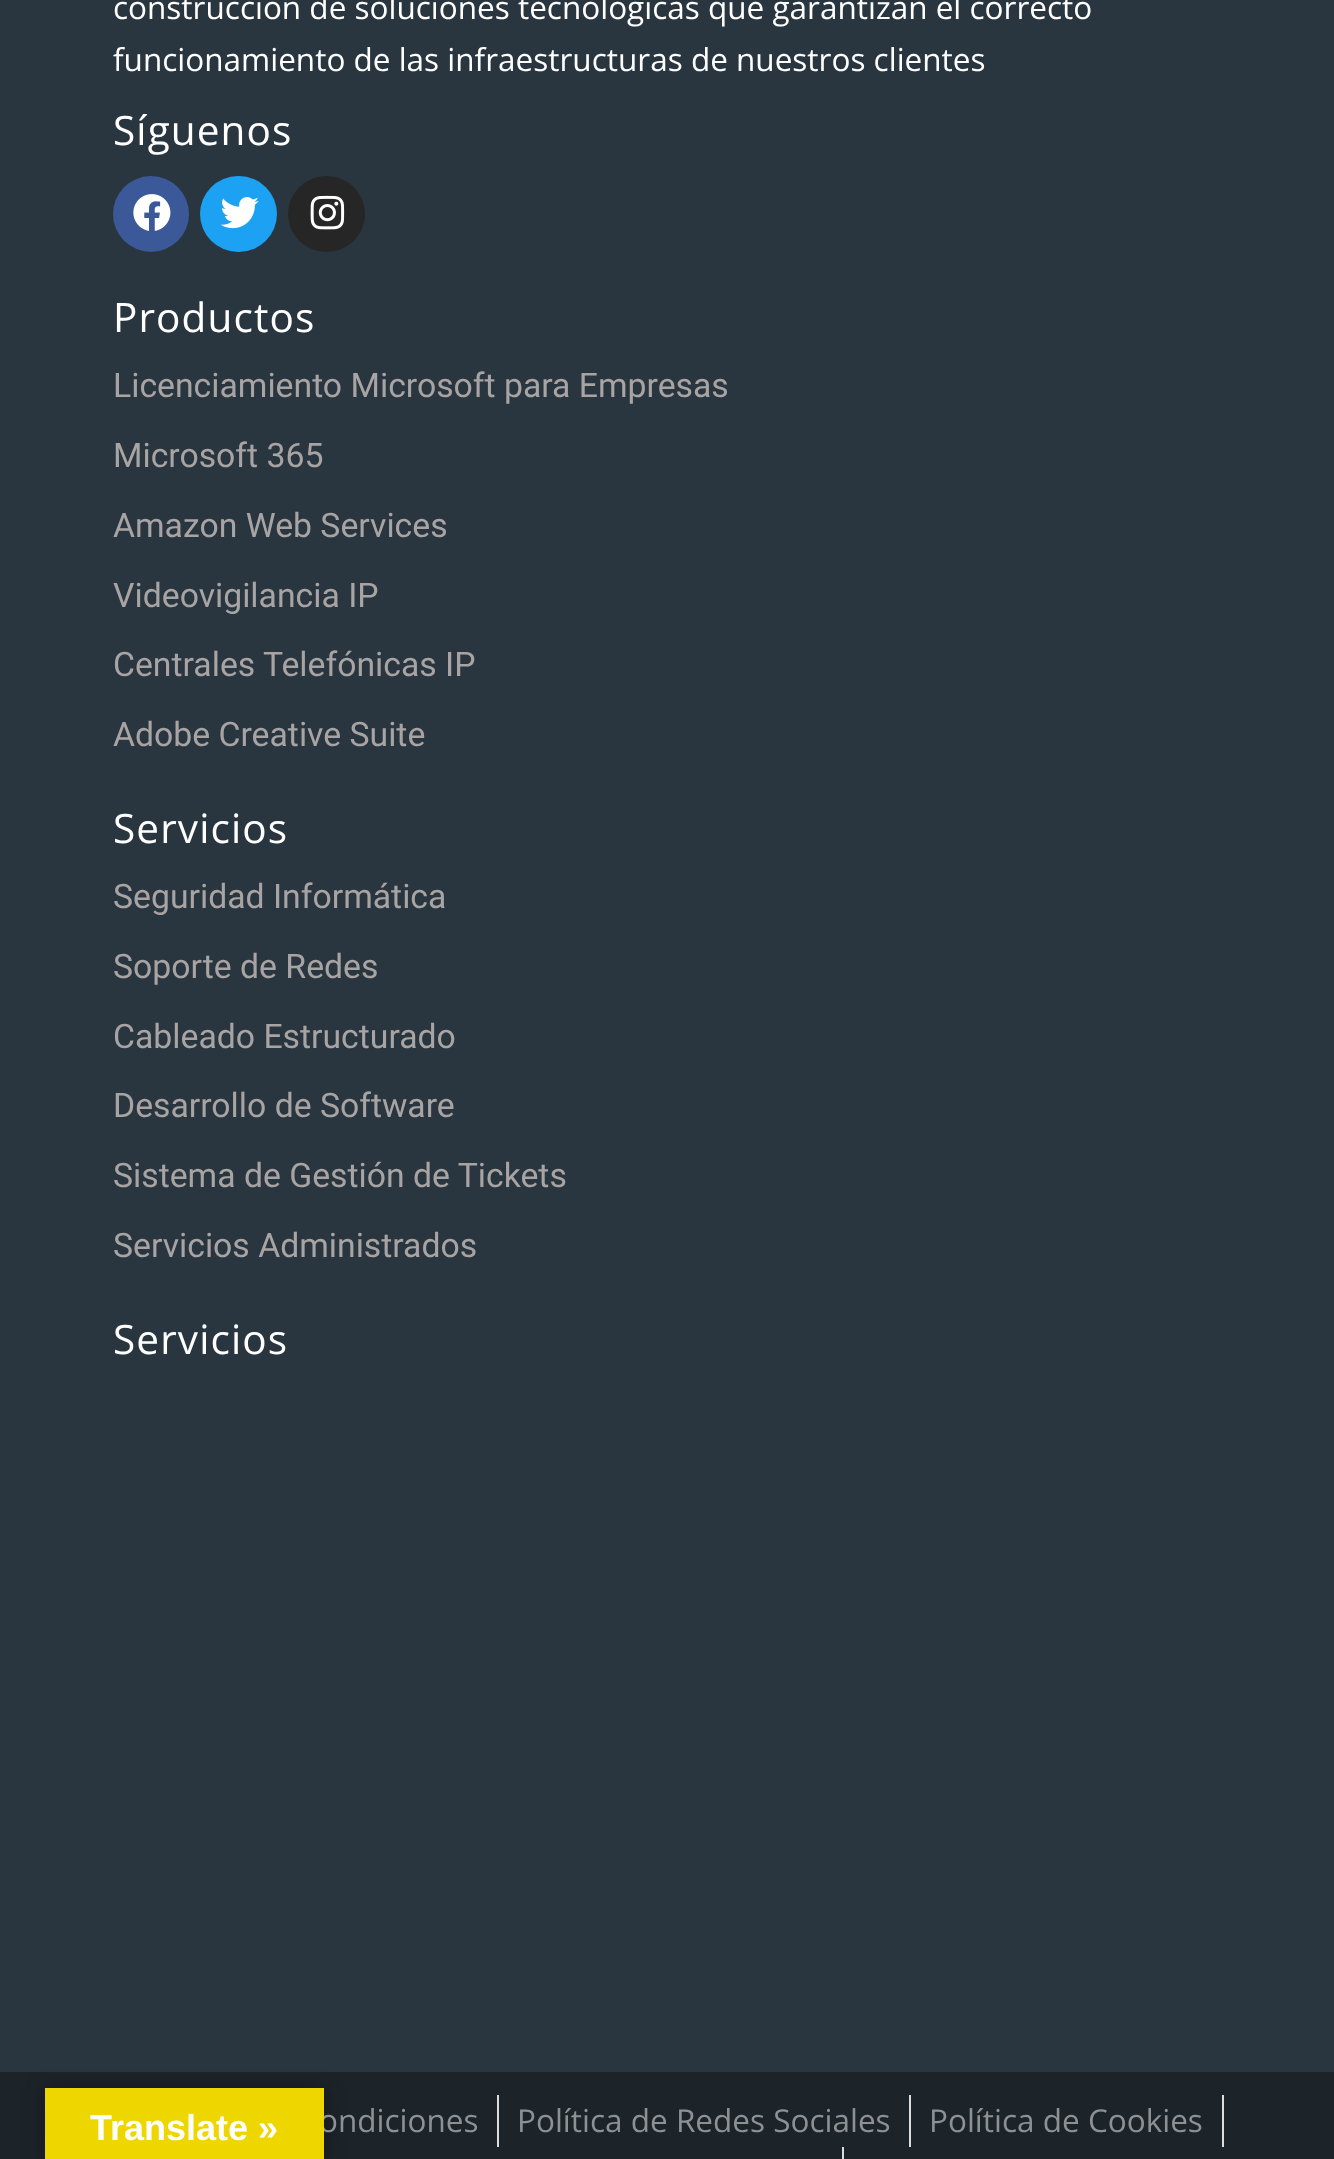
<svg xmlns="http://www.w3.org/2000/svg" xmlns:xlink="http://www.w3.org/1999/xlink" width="1334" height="2159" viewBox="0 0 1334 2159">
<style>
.cls-1{font:31.5px Open Sans;fill:#ffffff}
.cls-2{font:40.5px Open Sans;letter-spacing:1.1px;fill:#ffffff}
.cls-3{font:33.75px Roboto;fill:#a8a4a4}
.cls-4{font:31.5px Open Sans;fill:#8e9194}
.cls-5{font:bold 36px Liberation Sans;fill:#ffffff}
</style>
<rect width="100%" height="100%" fill="#2a363f"/>
<circle fill="#3b5998" cx="151" cy="214" r="38"/>
<image xlink:href="image0.png" x="133" y="194" width="38" height="37"/>
<rect fill="#1da1f2" x="200" y="176" width="77" height="76" rx="38"/>
<image xlink:href="image1.png" x="221" y="197" width="38" height="32"/>
<rect fill="#262626" x="288" y="176" width="77" height="76" rx="38"/>
<image xlink:href="image2.png" x="310" y="195" width="35" height="35"/>
<rect fill="#1c2329" x="0" y="2072" width="1334" height="87"/>
<rect fill="#dddddd" x="497" y="2095" width="2" height="52"/>
<rect fill="#dddddd" x="909" y="2095" width="2" height="52"/>
<rect fill="#dddddd" x="1222" y="2095" width="2" height="52"/>
<rect fill="#dddddd" x="842" y="2147" width="2" height="12"/>
<rect fill="#000000" fill-opacity="0.3" filter="blur(10px)" x="45" y="2088" width="279" height="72"/>
<text class="cls-1"><tspan x="113" y="19">construcción de soluciones tecnológicas que garantizan el correcto</tspan><tspan x="113" y="71">funcionamiento de las infraestructuras de nuestros clientes</tspan></text>
<text class="cls-2" x="113" y="145">Síguenos</text>
<text class="cls-2" x="113" y="332">Productos</text>
<text class="cls-3" x="113" y="397">Licenciamiento Microsoft para Empresas</text>
<text class="cls-3" x="113" y="467">Microsoft 365</text>
<text class="cls-3" x="113" y="537">Amazon Web Services</text>
<text class="cls-3" x="113" y="607">Videovigilancia IP</text>
<text class="cls-3" x="113" y="676">Centrales Telefónicas IP</text>
<text class="cls-3" x="113" y="746">Adobe Creative Suite</text>
<text class="cls-2" x="113" y="843">Servicios</text>
<text class="cls-3" x="113" y="908">Seguridad Informática</text>
<text class="cls-3" x="113" y="978">Soporte de Redes</text>
<text class="cls-3" x="113" y="1048">Cableado Estructurado</text>
<text class="cls-3" x="113" y="1117">Desarrollo de Software</text>
<text class="cls-3" x="113" y="1187">Sistema de Gestión de Tickets</text>
<text class="cls-3" x="113" y="1257">Servicios Administrados</text>
<text class="cls-2" x="113" y="1354">Servicios</text>
<text class="cls-4" x="319" y="2132">ondiciones</text>
<text class="cls-4" x="517" y="2132">Política de Redes Sociales</text>
<text class="cls-4" x="929" y="2132">Política de Cookies</text>
<rect fill="#eed600" x="45" y="2088" width="279" height="71"/>
<text class="cls-5" x="90" y="2140">Translate »</text>
</svg>
